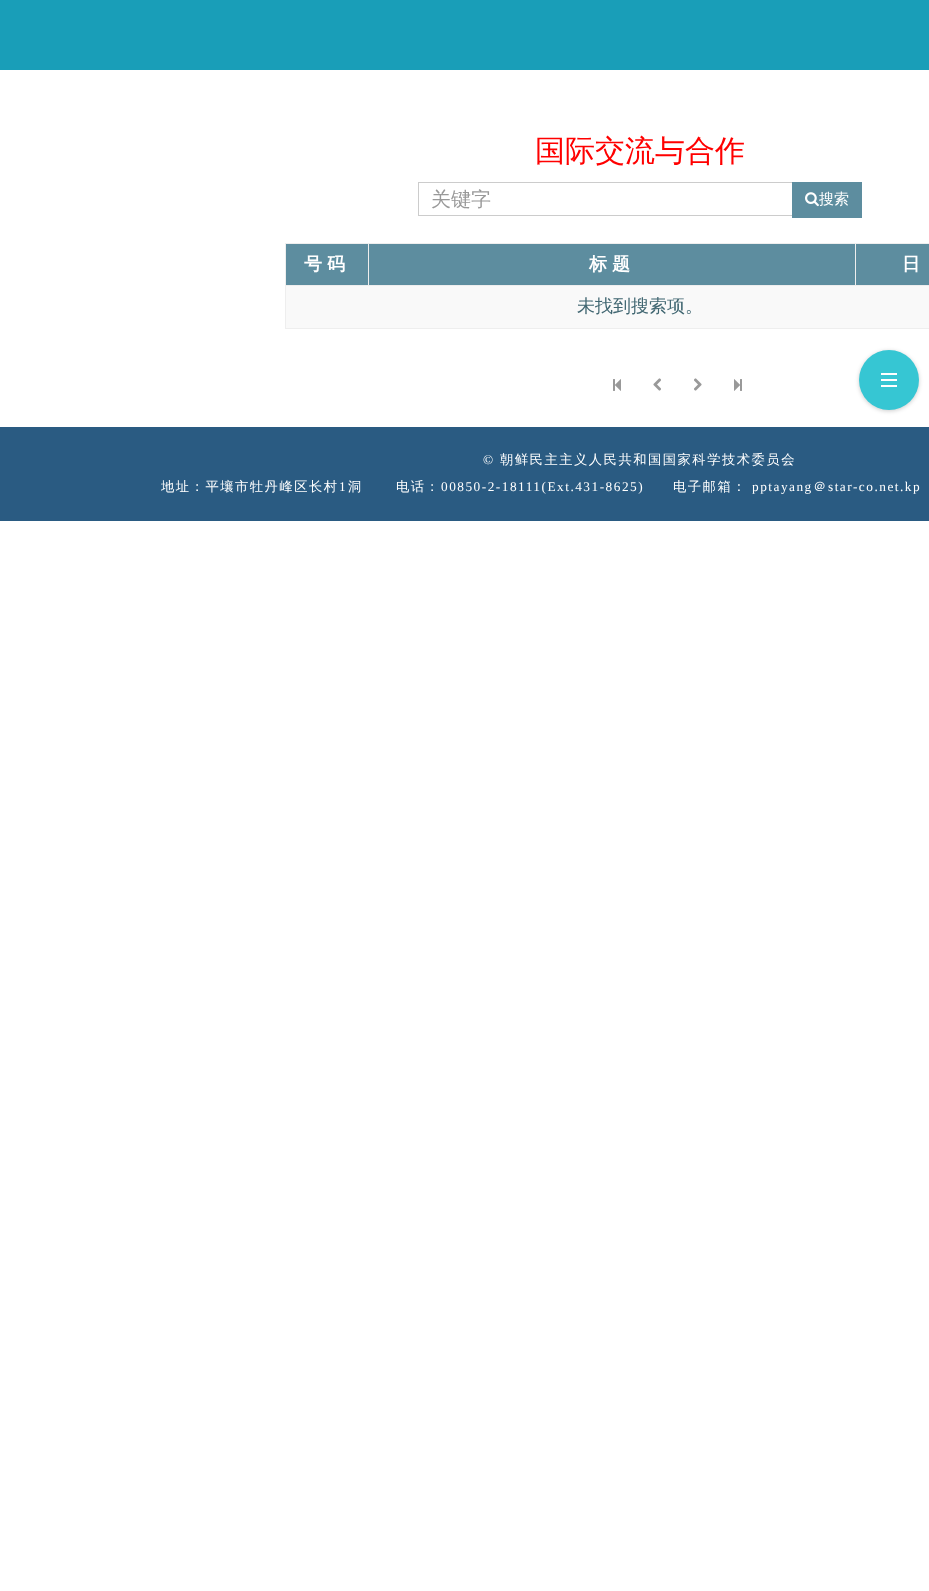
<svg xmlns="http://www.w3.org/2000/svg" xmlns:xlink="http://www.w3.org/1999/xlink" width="929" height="1591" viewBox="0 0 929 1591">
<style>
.cls-1{font:500 30px WenQuanYi Zen Hei;fill:#ff0000}
.cls-2{font:500 20px WenQuanYi Zen Hei;fill:#999999}
.cls-3{font:500 15px WenQuanYi Zen Hei;fill:#ffffff}
.cls-4{font:bold 18px WenQuanYi Zen Hei;letter-spacing:5px;fill:#ffffff}
.cls-5{font:500 18px WenQuanYi Zen Hei;fill:#406671}
.cls-6{font:13.3px Liberation Serif;letter-spacing:1.5px;fill:#ffffff}
.cls-7{font:500 13.3px WenQuanYi Zen Hei;letter-spacing:1.5px;fill:#ffffff}
</style>
<rect width="100%" height="100%" fill="#ffffff"/>
<rect fill="#199eb8" x="0" y="0" width="929" height="70"/>
<rect fill="none" stroke="#cccccc" x="418.5" y="182.5" width="374" height="33"/>
<rect fill="#5d8d9f" x="792" y="182" width="70" height="36"/>
<image xlink:href="image0.png" x="805" y="192" width="14" height="15"/>
<rect fill="#5d8d9f" x="286" y="244" width="82" height="41"/>
<rect fill="#eeeeee" x="855" y="243" width="74" height="1"/>
<rect fill="#eeeeee" x="285" y="285" width="644" height="1"/>
<rect fill="#eeeeee" x="855" y="243" width="1" height="43"/>
<rect fill="#eeeeee" x="368" y="243" width="488" height="1"/>
<rect fill="#eeeeee" x="368" y="243" width="1" height="43"/>
<rect fill="#eeeeee" x="285" y="243" width="84" height="1"/>
<rect fill="#eeeeee" x="285" y="328" width="644" height="1"/>
<rect fill="#eeeeee" x="285" y="285" width="1" height="44"/>
<rect fill="#eeeeee" x="285" y="243" width="1" height="43"/>
<rect fill="#5d8d9f" x="369" y="244" width="486" height="41"/>
<rect fill="#5d8d9f" x="856" y="244" width="73" height="41"/>
<rect fill="#f9f9f9" x="286" y="286" width="643" height="42"/>
<image xlink:href="image1.png" x="613" y="379" width="8" height="12"/>
<image xlink:href="image2.png" x="653" y="378" width="8" height="13"/>
<image xlink:href="image3.png" x="694" y="378" width="8" height="13"/>
<image xlink:href="image4.png" x="734" y="379" width="8" height="12"/>
<rect fill="#000000" fill-opacity="0.2" filter="blur(2px)" x="859" y="351" width="60" height="60" rx="30"/>
<circle fill="#36c6d3" cx="889" cy="380" r="30"/>
<rect fill="#ffffff" x="881" y="379" width="16" height="2"/>
<rect fill="#ffffff" x="881" y="373" width="16" height="2"/>
<rect fill="#ffffff" x="881" y="385" width="16" height="2"/>
<rect fill="#2a5b82" x="0" y="427" width="929" height="94"/>
<text class="cls-1" x="535" y="161">国际交流与合作</text>
<text class="cls-2" x="431" y="206">关键字</text>
<text class="cls-3" x="819" y="204">搜索</text>
<text class="cls-4" x="304" y="270">号码</text>
<text class="cls-4" x="589" y="270">标题</text>
<text class="cls-4" x="902" y="270">日</text>
<text class="cls-5" x="577" y="312">未找到搜索项。</text>
<text class="cls-6" x="483" y="464">©</text>
<text class="cls-7" x="500" y="464">朝鲜民主主义人民共和国国家科学技术委员会</text>
<text class="cls-7" x="161" y="491">地址：平壤市牡丹峰区长村</text>
<text class="cls-6" x="339" y="491">1</text>
<text class="cls-7" x="348" y="491">洞</text>
<text class="cls-7" x="396" y="491">电话：</text>
<text class="cls-6" x="441" y="491">00850-2-18111(Ext.431-8625)</text>
<text class="cls-7" x="673" y="491">电子邮箱：</text>
<text class="cls-6" x="752" y="491">pptayang</text>
<text class="cls-7" x="813" y="491">＠</text>
<text class="cls-6" x="828" y="491">star-co.net.kp</text>
</svg>
